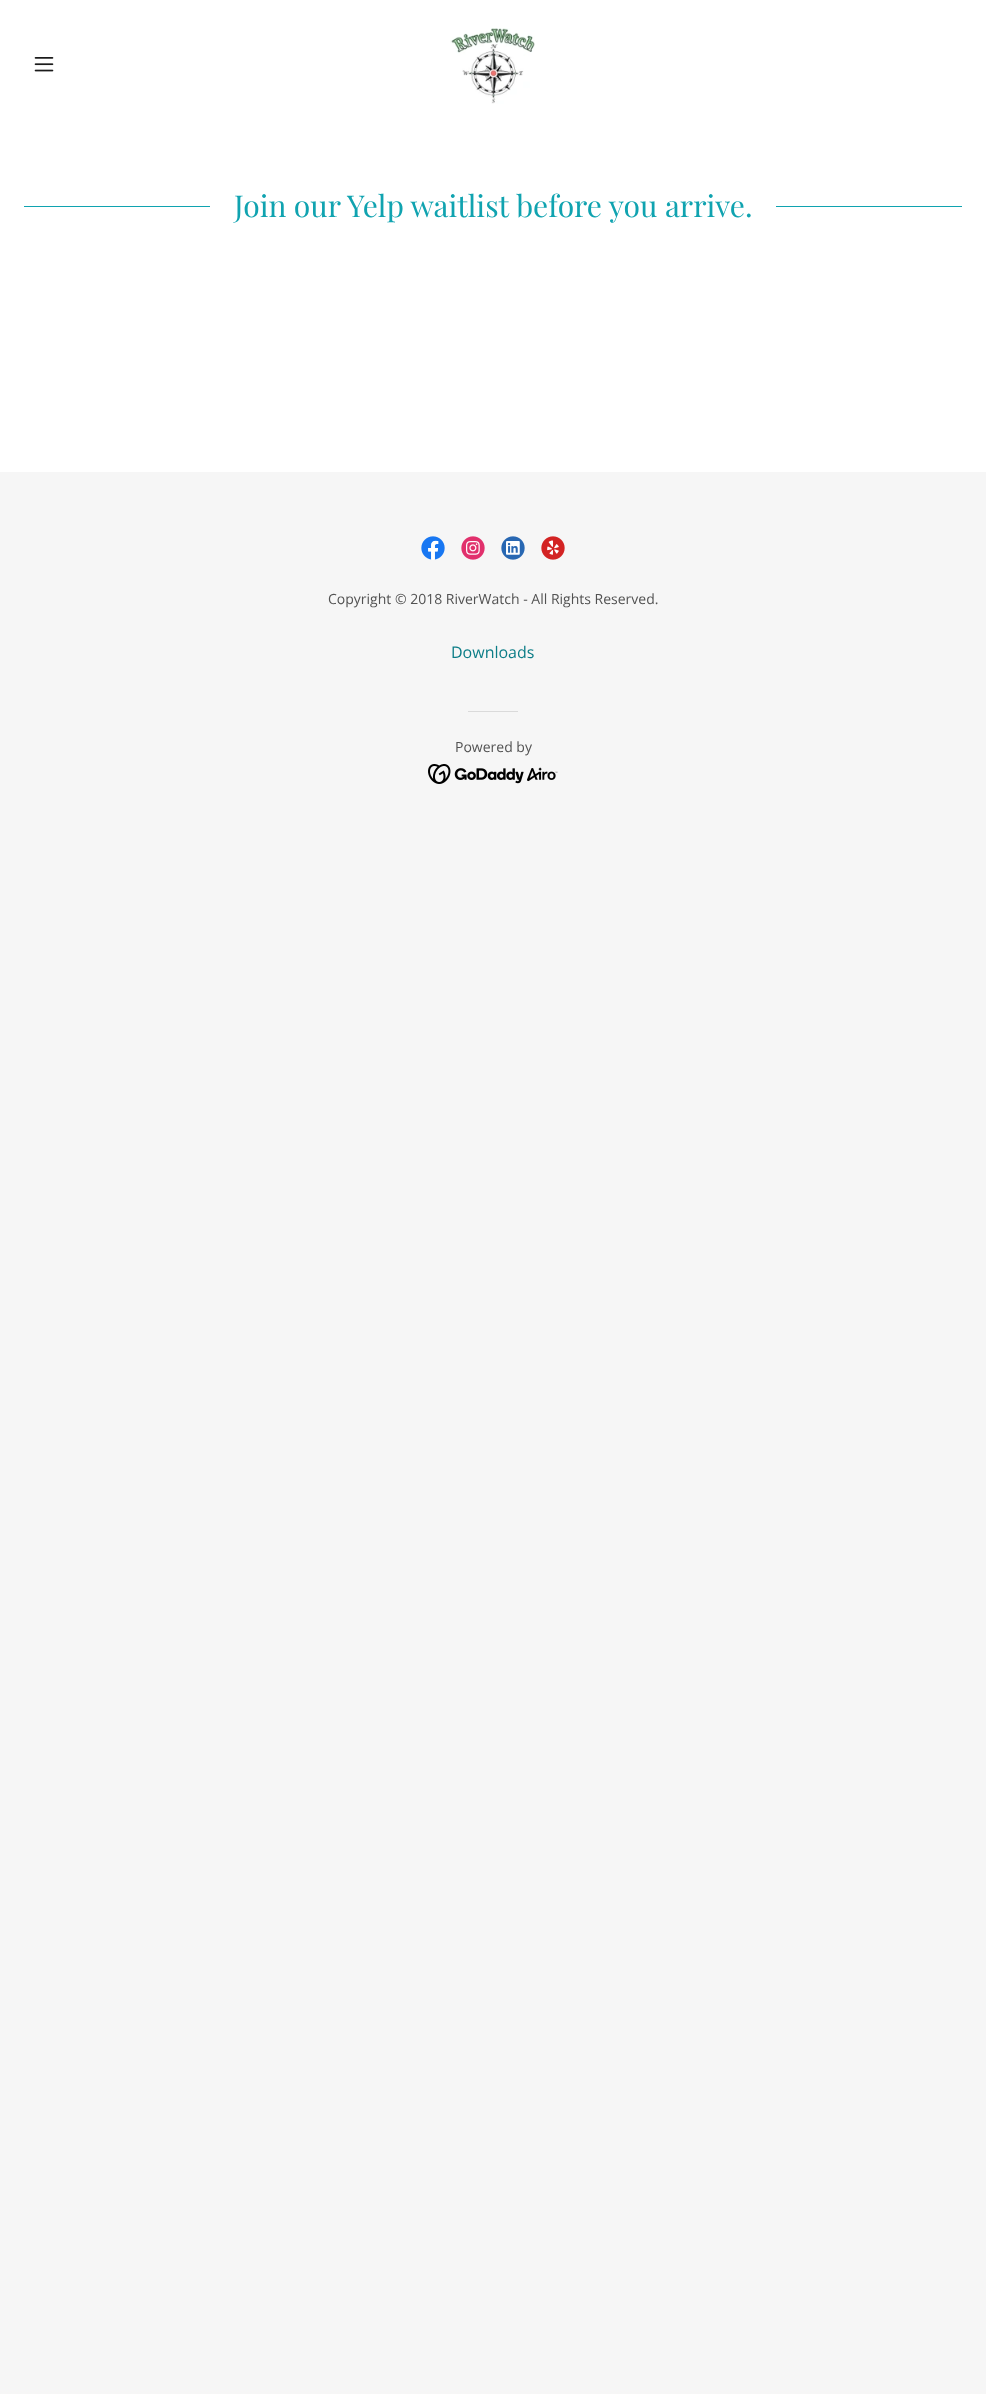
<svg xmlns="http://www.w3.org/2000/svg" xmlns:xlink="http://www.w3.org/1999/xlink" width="986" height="2394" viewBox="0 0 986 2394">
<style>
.cls-1{font:30px Playfair Display;fill:#10a3b0}
.cls-2{font:14px Open Sans;fill:#525252}
.cls-3{font:16px Open Sans;fill:#0c7d87}
</style>
<rect width="100%" height="100%" fill="#f6f6f6"/>
<rect fill="#ffffff" x="0" y="0" width="986" height="472"/>
<image xlink:href="image0.png" x="34" y="57" width="20" height="15"/>
<image xlink:href="image1.png" x="450" y="28" width="85" height="76"/>
<rect fill="#10a3b0" x="24" y="206" width="186" height="1"/>
<rect fill="#10a3b0" x="776" y="206" width="186" height="1"/>
<image xlink:href="image2.png" x="421" y="536" width="24" height="24"/>
<image xlink:href="image3.png" x="461" y="536" width="24" height="24"/>
<image xlink:href="image4.png" x="501" y="536" width="24" height="24"/>
<image xlink:href="image5.png" x="541" y="536" width="24" height="24"/>
<rect fill="#dadada" x="468" y="711" width="50" height="1"/>
<image xlink:href="image6.png" x="428" y="764" width="130" height="20"/>
<text class="cls-1" x="234" y="217">Join our Yelp waitlist before you arrive.</text>
<text class="cls-2" x="328" y="604">Copyright © 2018 RiverWatch - All Rights Reserved.</text>
<text class="cls-3" x="451" y="658">Downloads</text>
<text class="cls-2" x="455" y="752">Powered by</text>
</svg>
